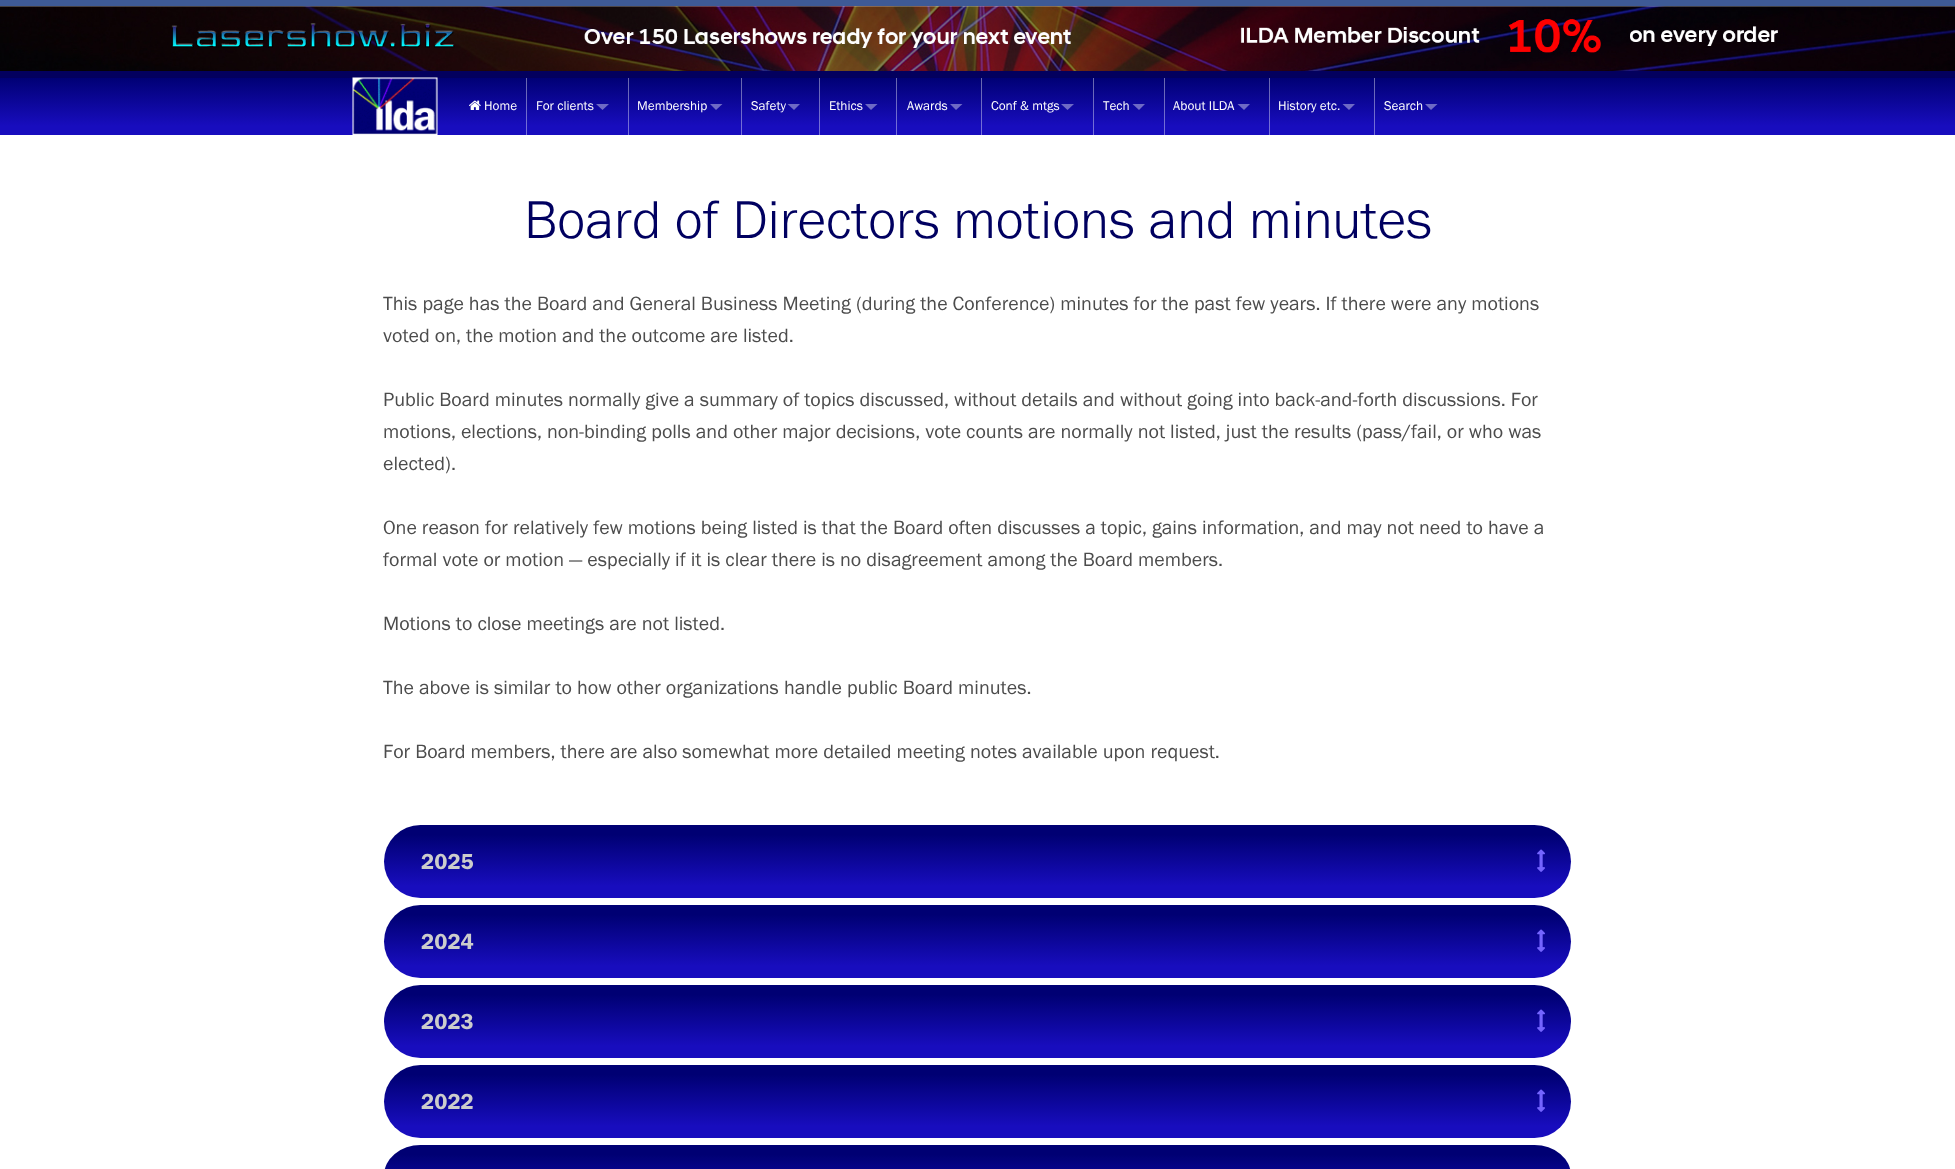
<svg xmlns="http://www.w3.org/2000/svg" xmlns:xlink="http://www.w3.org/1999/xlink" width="1955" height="1169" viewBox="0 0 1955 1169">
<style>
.cls-1{font:13.25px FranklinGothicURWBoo;fill:#ffffff}
.cls-2{font:55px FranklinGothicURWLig;fill:#000060}
.cls-3{font:20px FranklinGothicURWBoo;fill:#4c4c4c}
.cls-4{font:22.5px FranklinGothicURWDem;fill:#cccccc}
</style>
<defs>
<linearGradient id="g1" gradientUnits="userSpaceOnUse" x1="978" y1="77" x2="978" y2="135"><stop offset="0" stop-color="#000073"/><stop offset="0.85" stop-color="#180dbe"/></linearGradient>
<linearGradient id="g2" gradientUnits="userSpaceOnUse" x1="978" y1="77" x2="978" y2="135"><stop offset="0" stop-color="#6666ab"/><stop offset="0.85" stop-color="#746ed8"/></linearGradient>
<linearGradient id="g3" gradientUnits="userSpaceOnUse" x1="384" y1="898" x2="384" y2="825"><stop offset="0.16" stop-color="#180dbe"/><stop offset="0.87" stop-color="#000073"/></linearGradient>
<linearGradient id="g4" gradientUnits="userSpaceOnUse" x1="384" y1="978" x2="384" y2="905"><stop offset="0.16" stop-color="#180dbe"/><stop offset="0.87" stop-color="#000073"/></linearGradient>
<linearGradient id="g5" gradientUnits="userSpaceOnUse" x1="384" y1="1058" x2="384" y2="985"><stop offset="0.16" stop-color="#180dbe"/><stop offset="0.87" stop-color="#000073"/></linearGradient>
<linearGradient id="g6" gradientUnits="userSpaceOnUse" x1="384" y1="1138" x2="384" y2="1065"><stop offset="0.16" stop-color="#180dbe"/><stop offset="0.87" stop-color="#000073"/></linearGradient>
<linearGradient id="g7" gradientUnits="userSpaceOnUse" x1="384" y1="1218" x2="384" y2="1145"><stop offset="0.16" stop-color="#180dbe"/><stop offset="0.87" stop-color="#000073"/></linearGradient>
</defs>
<rect width="100%" height="100%" fill="#ffffff"/>
<rect fill="#3e5a96" x="0" y="0" width="1955" height="6"/>
<image xlink:href="image0.png" x="0" y="6" width="1955" height="65"/>
<rect fill="#03005e" x="0" y="71" width="1955" height="7"/>
<rect fill="url(#g1)" x="0" y="78" width="1955" height="57"/>
<rect fill="url(#g2)" x="1374" y="78" width="1" height="57"/>
<rect fill="url(#g2)" x="1269" y="78" width="1" height="57"/>
<rect fill="url(#g2)" x="1164" y="78" width="1" height="57"/>
<rect fill="url(#g2)" x="1093" y="78" width="1" height="57"/>
<rect fill="url(#g2)" x="981" y="78" width="1" height="57"/>
<rect fill="url(#g2)" x="896" y="78" width="1" height="57"/>
<rect fill="url(#g2)" x="819" y="78" width="1" height="57"/>
<rect fill="url(#g2)" x="741" y="78" width="1" height="57"/>
<rect fill="url(#g2)" x="628" y="78" width="1" height="57"/>
<rect fill="url(#g2)" x="526" y="78" width="1" height="57"/>
<image xlink:href="image1.png" x="352" y="77" width="86" height="58"/>
<image xlink:href="image2.png" x="469" y="100" width="12" height="10"/>
<path fill="#ffffff" fill-opacity="0.4" d="M596 104H609L602.5 110Z"/>
<path fill="#ffffff" fill-opacity="0.4" d="M710 104H722.5L716 110Z"/>
<path fill="#ffffff" fill-opacity="0.4" d="M787.5 104H800L794 110Z"/>
<path fill="#ffffff" fill-opacity="0.4" d="M865 104H877.5L871 110Z"/>
<path fill="#ffffff" fill-opacity="0.4" d="M950 104H962.5L956 110Z"/>
<path fill="#ffffff" fill-opacity="0.4" d="M1061 104H1074L1067.5 110Z"/>
<path fill="#ffffff" fill-opacity="0.4" d="M1132.5 104H1145L1139 110Z"/>
<path fill="#ffffff" fill-opacity="0.4" d="M1237.5 104H1250L1244 110Z"/>
<path fill="#ffffff" fill-opacity="0.4" d="M1342.5 104H1355L1349 110Z"/>
<path fill="#ffffff" fill-opacity="0.4" d="M1425 104H1437.5L1431 110Z"/>
<rect fill="url(#g3)" x="384" y="825" width="1187" height="73" rx="36.5"/>
<image xlink:href="image3.png" x="1537" y="849" width="8" height="23"/>
<rect fill="url(#g4)" x="384" y="905" width="1187" height="73" rx="36.5"/>
<image xlink:href="image3.png" x="1537" y="929" width="8" height="23"/>
<rect fill="url(#g5)" x="384" y="985" width="1187" height="73" rx="36.5"/>
<image xlink:href="image3.png" x="1537" y="1009" width="8" height="23"/>
<rect fill="url(#g6)" x="384" y="1065" width="1187" height="73" rx="36.5"/>
<image xlink:href="image3.png" x="1537" y="1089" width="8" height="23"/>
<rect fill="url(#g7)" x="384" y="1145" width="1187" height="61" rx="36.5"/>
<text class="cls-1" x="484" y="110">Home</text>
<text class="cls-1" x="536" y="110">For clients</text>
<text class="cls-1" x="637" y="110">Membership</text>
<text class="cls-1" x="751" y="110">Safety</text>
<text class="cls-1" x="829" y="110">Ethics</text>
<text class="cls-1" x="907" y="110">Awards</text>
<text class="cls-1" x="991" y="110">Conf &amp; mtgs</text>
<text class="cls-1" x="1103" y="110">Tech</text>
<text class="cls-1" x="1173" y="110">About ILDA</text>
<text class="cls-1" x="1278" y="110">History etc.</text>
<text class="cls-1" x="1384" y="110">Search</text>
<text class="cls-2" x="524" y="238">Board of Directors motions and minutes</text>
<text class="cls-3"><tspan x="383" y="310">This page has the Board and General Business Meeting (during the Conference) minutes for the past few years. If there were any motions</tspan><tspan x="383" y="342">voted on, the motion and the outcome are listed.</tspan></text>
<text class="cls-3"><tspan x="383" y="406">Public Board minutes normally give a summary of topics discussed, without details and without going into back-and-forth discussions. For</tspan><tspan x="383" y="438">motions, elections, non-binding polls and other major decisions, vote counts are normally not listed, just the results (pass/fail, or who was</tspan><tspan x="383" y="470">elected).</tspan></text>
<text class="cls-3"><tspan x="383" y="534">One reason for relatively few motions being listed is that the Board often discusses a topic, gains information, and may not need to have a</tspan><tspan x="383" y="566">formal vote or motion — especially if it is clear there is no disagreement among the Board members.</tspan></text>
<text class="cls-3" x="383" y="630">Motions to close meetings are not listed.</text>
<text class="cls-3" x="383" y="694">The above is similar to how other organizations handle public Board minutes.</text>
<text class="cls-3" x="383" y="758">For Board members, there are also somewhat more detailed meeting notes available upon request.</text>
<text class="cls-4" x="421" y="869">2025</text>
<text class="cls-4" x="421" y="949">2024</text>
<text class="cls-4" x="421" y="1029">2023</text>
<text class="cls-4" x="421" y="1109">2022</text>
</svg>
